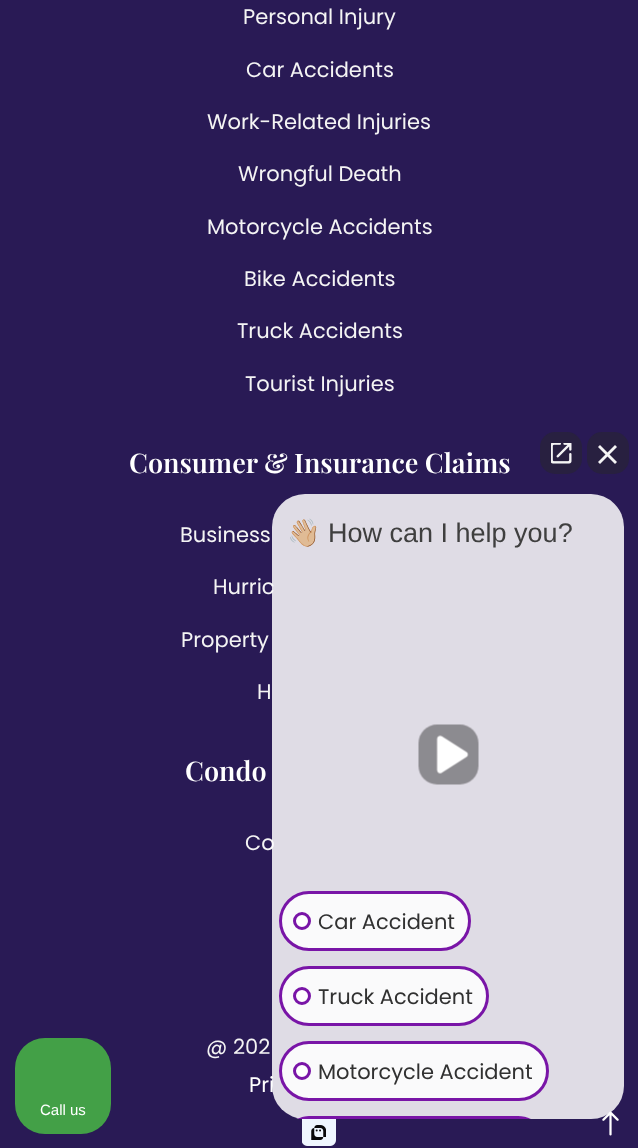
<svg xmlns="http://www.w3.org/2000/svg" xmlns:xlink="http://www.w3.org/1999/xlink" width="638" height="1148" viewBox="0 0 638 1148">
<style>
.cls-1{font:21px Poppins;fill:#f4f4f4}
.cls-2{font:600 27px Playfair Display;fill:#ffffff}
.cls-3{font:21px Poppins;fill:#ffffff}
.cls-4{font:27px Noto Color Emoji;fill:#3f3f3f}
.cls-5{font:27px Liberation Sans;fill:#3f3f3f}
.cls-6{font:21px Poppins;fill:#313131}
.cls-7{font:15px Liberation Sans;fill:#ffffff}
</style>
<defs>
<clipPath id="clip1"><path d="M272 563H624V1089C624 1105.5 610.5 1119 594 1119H302C285.5 1119 272 1105.5 272 1089Z"/></clipPath>
</defs>
<rect width="100%" height="100%" fill="#291a55"/>
<image xlink:href="image0.png" x="602" y="1111" width="17" height="25"/>
<rect fill="#282040" x="540" y="432" width="42" height="42" rx="15"/>
<image xlink:href="image1.png" x="551" y="443" width="21" height="21"/>
<rect fill="#282040" x="587" y="432" width="42" height="42" rx="15"/>
<path fill="#f5f5f5" d="M598 447L600 445L617 462L615 464Z"/>
<path fill="#f5f5f5" d="M615 445L617 447L600 464L598 462Z"/>
<image xlink:href="image3.png" x="302" y="1119" width="34" height="27"/>
<rect fill="#43a047" x="15" y="1038" width="96" height="96" rx="30"/>
<text class="cls-1" x="243" y="24">Personal Injury</text>
<text class="cls-1" x="246" y="77">Car Accidents</text>
<text class="cls-1" x="207" y="129">Work-Related Injuries</text>
<text class="cls-1" x="238" y="181">Wrongful Death</text>
<text class="cls-1" x="207" y="234">Motorcycle Accidents</text>
<text class="cls-1" x="244" y="286">Bike Accidents</text>
<text class="cls-1" x="237" y="338">Truck Accidents</text>
<text class="cls-1" x="245" y="391">Tourist Injuries</text>
<text class="cls-2" x="129" y="473">Consumer &amp; Insurance Claims</text>
<text class="cls-1" x="180" y="542">Business</text>
<text class="cls-1" x="213" y="594">Hurric</text>
<text class="cls-1" x="181" y="647">Property</text>
<text class="cls-1" x="257" y="699">H</text>
<text class="cls-2" x="185" y="781">Condo</text>
<text class="cls-1" x="245" y="850">Co</text>
<text class="cls-1" x="206" y="1054">@ 202</text>
<text class="cls-3" x="249" y="1092">Pri</text>
<rect fill="#ffffff" fill-opacity="0.85" x="272" y="494" width="352" height="625" rx="33"/>
<text class="cls-4" x="287" y="542">👋🏼</text>
<text class="cls-5" x="328" y="542">How can I help you?</text>
<image xlink:href="image2.png" x="418" y="724" width="61" height="61"/>
<rect fill="#fafafb" stroke="#7915a7" stroke-width="3" x="280.5" y="892.5" width="189" height="57" rx="28.5"/>
<circle fill="#ffffff" stroke="#7915a7" stroke-width="3" cx="302" cy="921" r="7.5"/>
<text class="cls-6" x="318" y="929">Car Accident</text>
<rect fill="#fafafb" stroke="#7915a7" stroke-width="3" x="280.5" y="967.5" width="207" height="57" rx="28.5"/>
<circle fill="#ffffff" stroke="#7915a7" stroke-width="3" cx="302" cy="996" r="7.5"/>
<text class="cls-6" x="318" y="1004">Truck Accident</text>
<rect fill="#ffffff" fill-opacity="0.85" stroke="#7915a7" stroke-width="3" x="280.5" y="1042.5" width="267" height="57" rx="28.5"/>
<circle fill="#ffffff" stroke="#7915a7" stroke-width="3" cx="302" cy="1071" r="7.5"/>
<text class="cls-6" x="318" y="1079">Motorcycle Accident</text>
<g clip-path="url(#clip1)">
<path fill="#ffffff" fill-opacity="0.85" d="M309 1116H518C534.5 1116 548 1129.5 548 1146V1119H279V1146C279 1129.5 292.5 1116 309 1116Z"/>
</g>
<path fill="#7915a7" d="M309 1116C305 1116 301 1117 297 1119H302H531C527 1117 523 1116 518 1116Z"/>
<text class="cls-7" x="40" y="1115">Call us</text>
</svg>
